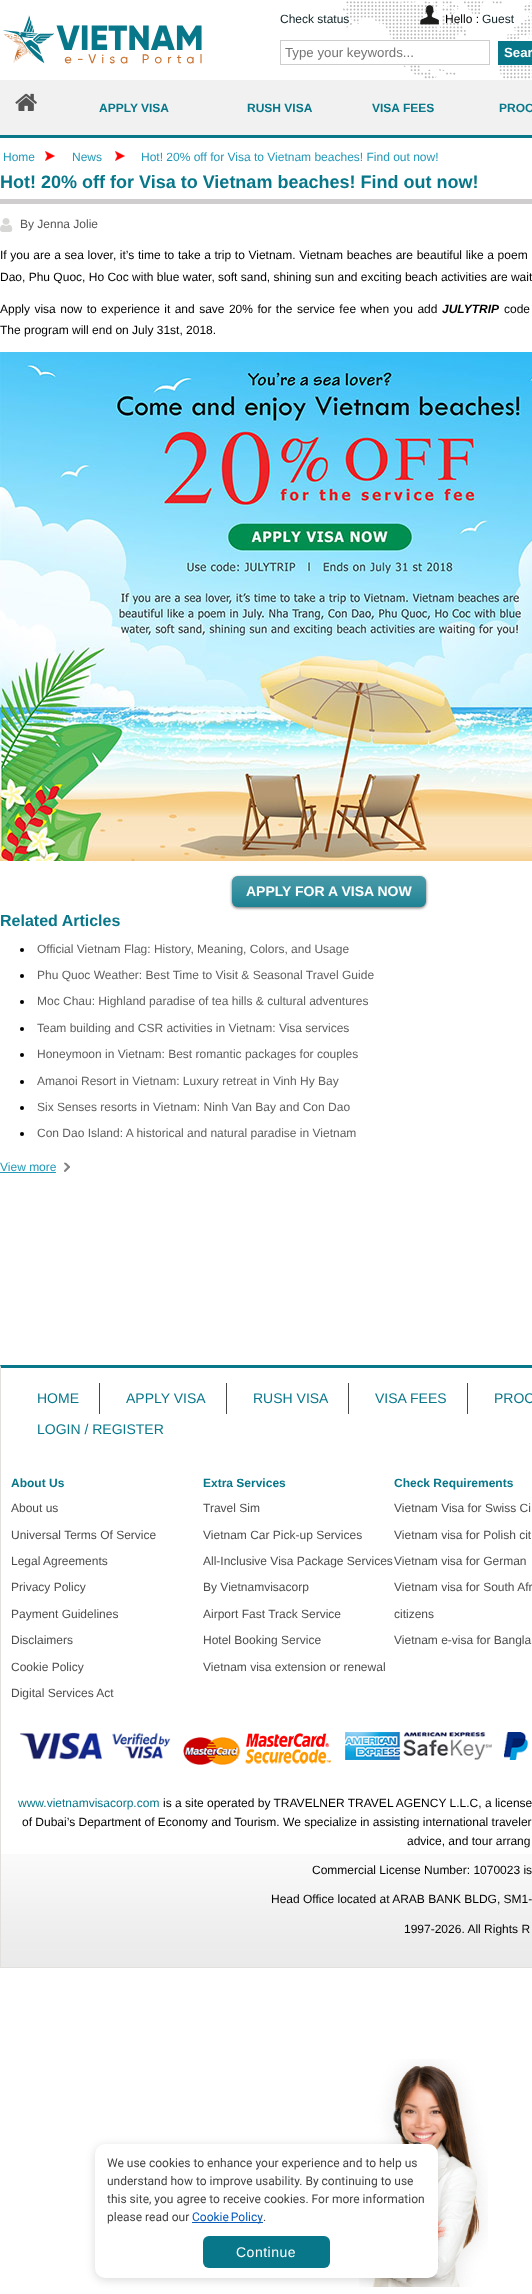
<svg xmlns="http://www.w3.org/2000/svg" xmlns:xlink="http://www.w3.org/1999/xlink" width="532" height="2294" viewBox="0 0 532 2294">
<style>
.cls-1{font:12px Liberation Sans;fill:#0e2126}
.cls-2{font:12px Liberation Sans;fill:#000000}
.cls-3{font:13.25px Liberation Sans;fill:#757575}
.cls-4{font:bold 13.25px Liberation Sans;fill:#ffffff}
.cls-5{font:bold 12px Liberation Sans;fill:#08778a}
.cls-6{font:12px Liberation Sans;fill:#2399b7}
.cls-7{font:bold 18px Liberation Sans;fill:#08778a}
.cls-8{font:12px Liberation Sans;fill:#565656}
.cls-9{font:italic bold 12px Liberation Sans;fill:#000000}
.cls-10{font:bold 14px Liberation Sans;fill:#ffffff}
.cls-11{font:bold 16px Liberation Sans;fill:#08778a}
.cls-12{font:12px Liberation Sans;fill:#606060}
.cls-13{font:14px Liberation Sans;fill:#08778a}
.cls-14{font:12px Liberation Sans;fill:#4d4d4d}
.cls-15{font:12px Liberation Sans;fill:#08778a}
.cls-16{font:12px Roboto;fill:#434343}
.cls-17{font:12px Roboto;fill:#085bb9}
.cls-18{font:14px Liberation Sans;letter-spacing:0.5px;fill:#ffffff}
</style>
<rect width="100%" height="100%" fill="#ffffff"/>
<image xlink:href="image0.png" x="343" y="1" width="189" height="79"/>
<image xlink:href="image1.png" x="3" y="15" width="199" height="49"/>
<image xlink:href="image2.png" x="420" y="5" width="19" height="20"/>
<rect fill="#ffffff" x="390" y="41" width="69" height="23"/>
<rect fill="none" stroke="#cdcdcd" x="280.5" y="40.5" width="209" height="24"/>
<rect fill="#08778a" x="498" y="41" width="34" height="24"/>
<rect fill="#f1f1f1" x="0" y="80" width="532" height="55"/>
<rect fill="#08778a" x="0" y="135" width="532" height="3"/>
<image xlink:href="image3.png" x="15" y="93" width="22" height="18"/>
<image xlink:href="image4.png" x="45" y="151" width="10" height="10"/>
<image xlink:href="image4.png" x="115" y="151" width="10" height="10"/>
<rect fill="#cfcdcd" x="0" y="199" width="532" height="5"/>
<image xlink:href="image5.png" x="0" y="218" width="13" height="14"/>
<image xlink:href="image6.png" x="0" y="352" width="532" height="509"/>
<rect fill="#000000" fill-opacity="0.6" filter="blur(1.5px)" x="232" y="877" width="194" height="31" rx="6"/>
<rect fill="#08778a" x="232" y="876" width="194" height="31" rx="6"/>
<image xlink:href="image7.png" x="232" y="876" width="194" height="31"/>
<circle fill="#000000" cx="22" cy="950" r="2"/>
<circle fill="#000000" cx="22" cy="976" r="2"/>
<circle fill="#000000" cx="22" cy="1002" r="2"/>
<circle fill="#000000" cx="22" cy="1029" r="2"/>
<circle fill="#000000" cx="22" cy="1055" r="2"/>
<circle fill="#000000" cx="22" cy="1082" r="2"/>
<circle fill="#000000" cx="22" cy="1108" r="2"/>
<circle fill="#000000" cx="22" cy="1134" r="2"/>
<rect fill="#2399b7" x="0" y="1172" width="56" height="1"/>
<image xlink:href="image8.png" x="64" y="1162" width="6" height="10"/>
<image xlink:href="image9.png" x="1" y="1854" width="531" height="113"/>
<path fill="#08778a" d="M0 1365H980L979 1368H1Z"/>
<rect fill="#e1e0df" x="0" y="1967" width="532" height="1"/>
<path fill="#e1e0df" d="M0 1968V1365L1 1368V1967Z"/>
<rect fill="#474747" x="99" y="1383" width="1" height="31"/>
<rect fill="#474747" x="226" y="1383" width="1" height="31"/>
<rect fill="#474747" x="348" y="1383" width="1" height="31"/>
<rect fill="#474747" x="467" y="1383" width="1" height="31"/>
<image xlink:href="image10.png" x="20" y="1732" width="82" height="28"/>
<image xlink:href="image11.png" x="112" y="1732" width="59" height="27"/>
<image xlink:href="image12.png" x="183" y="1737" width="57" height="28"/>
<image xlink:href="image13.png" x="245" y="1733" width="86" height="31"/>
<image xlink:href="image14.png" x="345" y="1732" width="55" height="28"/>
<image xlink:href="image15.png" x="403" y="1732" width="89" height="28"/>
<image xlink:href="image16.png" x="504" y="1732" width="25" height="28"/>
<image xlink:href="image17.png" x="359" y="2059" width="129" height="228"/>
<rect fill="#000000" fill-opacity="0.15" filter="blur(5px)" x="95" y="2146" width="343" height="134" rx="10"/>
<rect fill="#ffffff" x="95" y="2144" width="343" height="134" rx="10"/>
<rect fill="#085bb9" x="192" y="2222" width="71" height="1"/>
<rect fill="#08778a" x="203" y="2236" width="127" height="32" rx="6"/>
<text class="cls-1" x="280" y="23">Check status</text>
<text class="cls-2" x="445" y="23">Hello :</text>
<text class="cls-1" x="482" y="23">Guest</text>
<text class="cls-3" x="285" y="57">Type your keywords...</text>
<text class="cls-4" x="504" y="57">Sear</text>
<text class="cls-5" x="99" y="112">APPLY VISA</text>
<text class="cls-5" x="247" y="112">RUSH VISA</text>
<text class="cls-5" x="372" y="112">VISA FEES</text>
<text class="cls-5" x="499" y="112">PROC</text>
<text class="cls-6" x="3" y="161">Home</text>
<text class="cls-6" x="72" y="161">News</text>
<text class="cls-6" x="141" y="161">Hot! 20% off for Visa to Vietnam beaches! Find out now!</text>
<text class="cls-7" x="0" y="188">Hot! 20% off for Visa to Vietnam beaches! Find out now!</text>
<text class="cls-8" x="20" y="228">By Jenna Jolie</text>
<text class="cls-2"><tspan x="0" y="259" word-spacing="0.3">If you are a sea lover, it’s time to take a trip to Vietnam. Vietnam beaches are beautiful like a poem</tspan><tspan x="0" y="281">Dao, Phu Quoc, Ho Coc with blue water, soft sand, shining sun and exciting beach activities are wait</tspan></text>
<text class="cls-2" x="0" y="313" word-spacing="1.1">Apply visa now to experience it and save 20% for the service fee when you add</text>
<text class="cls-9" x="442" y="313">JULYTRIP</text>
<text class="cls-2" x="504" y="313" word-spacing="1.1">code</text>
<text class="cls-2" x="0" y="334">The program will end on July 31st, 2018.</text>
<text class="cls-10" x="246" y="896">APPLY FOR A VISA NOW</text>
<text class="cls-11" x="0" y="926">Related Articles</text>
<text class="cls-12" x="37" y="953">Official Vietnam Flag: History, Meaning, Colors, and Usage</text>
<text class="cls-12" x="37" y="979">Phu Quoc Weather: Best Time to Visit &amp; Seasonal Travel Guide</text>
<text class="cls-12" x="37" y="1005">Moc Chau: Highland paradise of tea hills &amp; cultural adventures</text>
<text class="cls-12" x="37" y="1032">Team building and CSR activities in Vietnam: Visa services</text>
<text class="cls-12" x="37" y="1058">Honeymoon in Vietnam: Best romantic packages for couples</text>
<text class="cls-12" x="37" y="1085">Amanoi Resort in Vietnam: Luxury retreat in Vinh Hy Bay</text>
<text class="cls-12" x="37" y="1111">Six Senses resorts in Vietnam: Ninh Van Bay and Con Dao</text>
<text class="cls-12" x="37" y="1137">Con Dao Island: A historical and natural paradise in Vietnam</text>
<text class="cls-6" x="0" y="1171">View more</text>
<text class="cls-13" x="37" y="1403">HOME</text>
<text class="cls-13" x="126" y="1403">APPLY VISA</text>
<text class="cls-13" x="253" y="1403">RUSH VISA</text>
<text class="cls-13" x="375" y="1403">VISA FEES</text>
<text class="cls-13" x="494" y="1403">PROC</text>
<text class="cls-13" x="37" y="1434">LOGIN / REGISTER</text>
<text class="cls-5" x="11" y="1487">About Us</text>
<text class="cls-14" x="11" y="1512">About us</text>
<text class="cls-14" x="11" y="1539">Universal Terms Of Service</text>
<text class="cls-14" x="11" y="1565">Legal Agreements</text>
<text class="cls-14" x="11" y="1591">Privacy Policy</text>
<text class="cls-14" x="11" y="1618">Payment Guidelines</text>
<text class="cls-14" x="11" y="1644">Disclaimers</text>
<text class="cls-14" x="11" y="1671">Cookie Policy</text>
<text class="cls-14" x="11" y="1697">Digital Services Act</text>
<text class="cls-5" x="203" y="1487">Extra Services</text>
<text class="cls-14" x="203" y="1512">Travel Sim</text>
<text class="cls-14" x="203" y="1539">Vietnam Car Pick-up Services</text>
<text class="cls-14" x="203" y="1565">All-Inclusive Visa Package Services</text>
<text class="cls-14" x="203" y="1591">By Vietnamvisacorp</text>
<text class="cls-14" x="203" y="1618">Airport Fast Track Service</text>
<text class="cls-14" x="203" y="1644">Hotel Booking Service</text>
<text class="cls-14" x="203" y="1671">Vietnam visa extension or renewal</text>
<text class="cls-5" x="394" y="1487">Check Requirements</text>
<text class="cls-14" x="394" y="1512">Vietnam Visa for Swiss Ci</text>
<text class="cls-14" x="394" y="1539">Vietnam visa for Polish cit</text>
<text class="cls-14" x="394" y="1565">Vietnam visa for German</text>
<text class="cls-14" x="394" y="1591">Vietnam visa for South Afr</text>
<text class="cls-14" x="394" y="1618">citizens</text>
<text class="cls-14" x="394" y="1644">Vietnam e-visa for Bangla</text>
<text class="cls-15" x="18" y="1807">www.vietnamvisacorp.com</text>
<text class="cls-2" x="163" y="1807">is a site operated by TRAVELNER TRAVEL AGENCY L.L.C, a license</text>
<text class="cls-2" x="22" y="1826">of Dubai’s Department of Economy and Tourism. We specialize in assisting international traveler</text>
<text class="cls-2" x="407" y="1845">advice, and tour arrang</text>
<text class="cls-2" x="312" y="1874">Commercial License Number: 1070023 is</text>
<text class="cls-2" x="271" y="1903">Head Office located at ARAB BANK BLDG, SM1-</text>
<text class="cls-2" x="404" y="1933">1997-2026. All Rights R</text>
<text class="cls-16"><tspan x="107" y="2167">We use cookies to enhance your experience and to help us</tspan><tspan x="107" y="2185">understand how to improve usability. By continuing to use</tspan><tspan x="107" y="2203">this site, you agree to receive cookies. For more information</tspan><tspan x="107" y="2221">please read our</tspan></text>
<text class="cls-17" x="192" y="2221" word-spacing="-1">Cookie Policy</text>
<text class="cls-16" x="263" y="2221">.</text>
<text class="cls-18" x="236" y="2257">Continue</text>
</svg>
